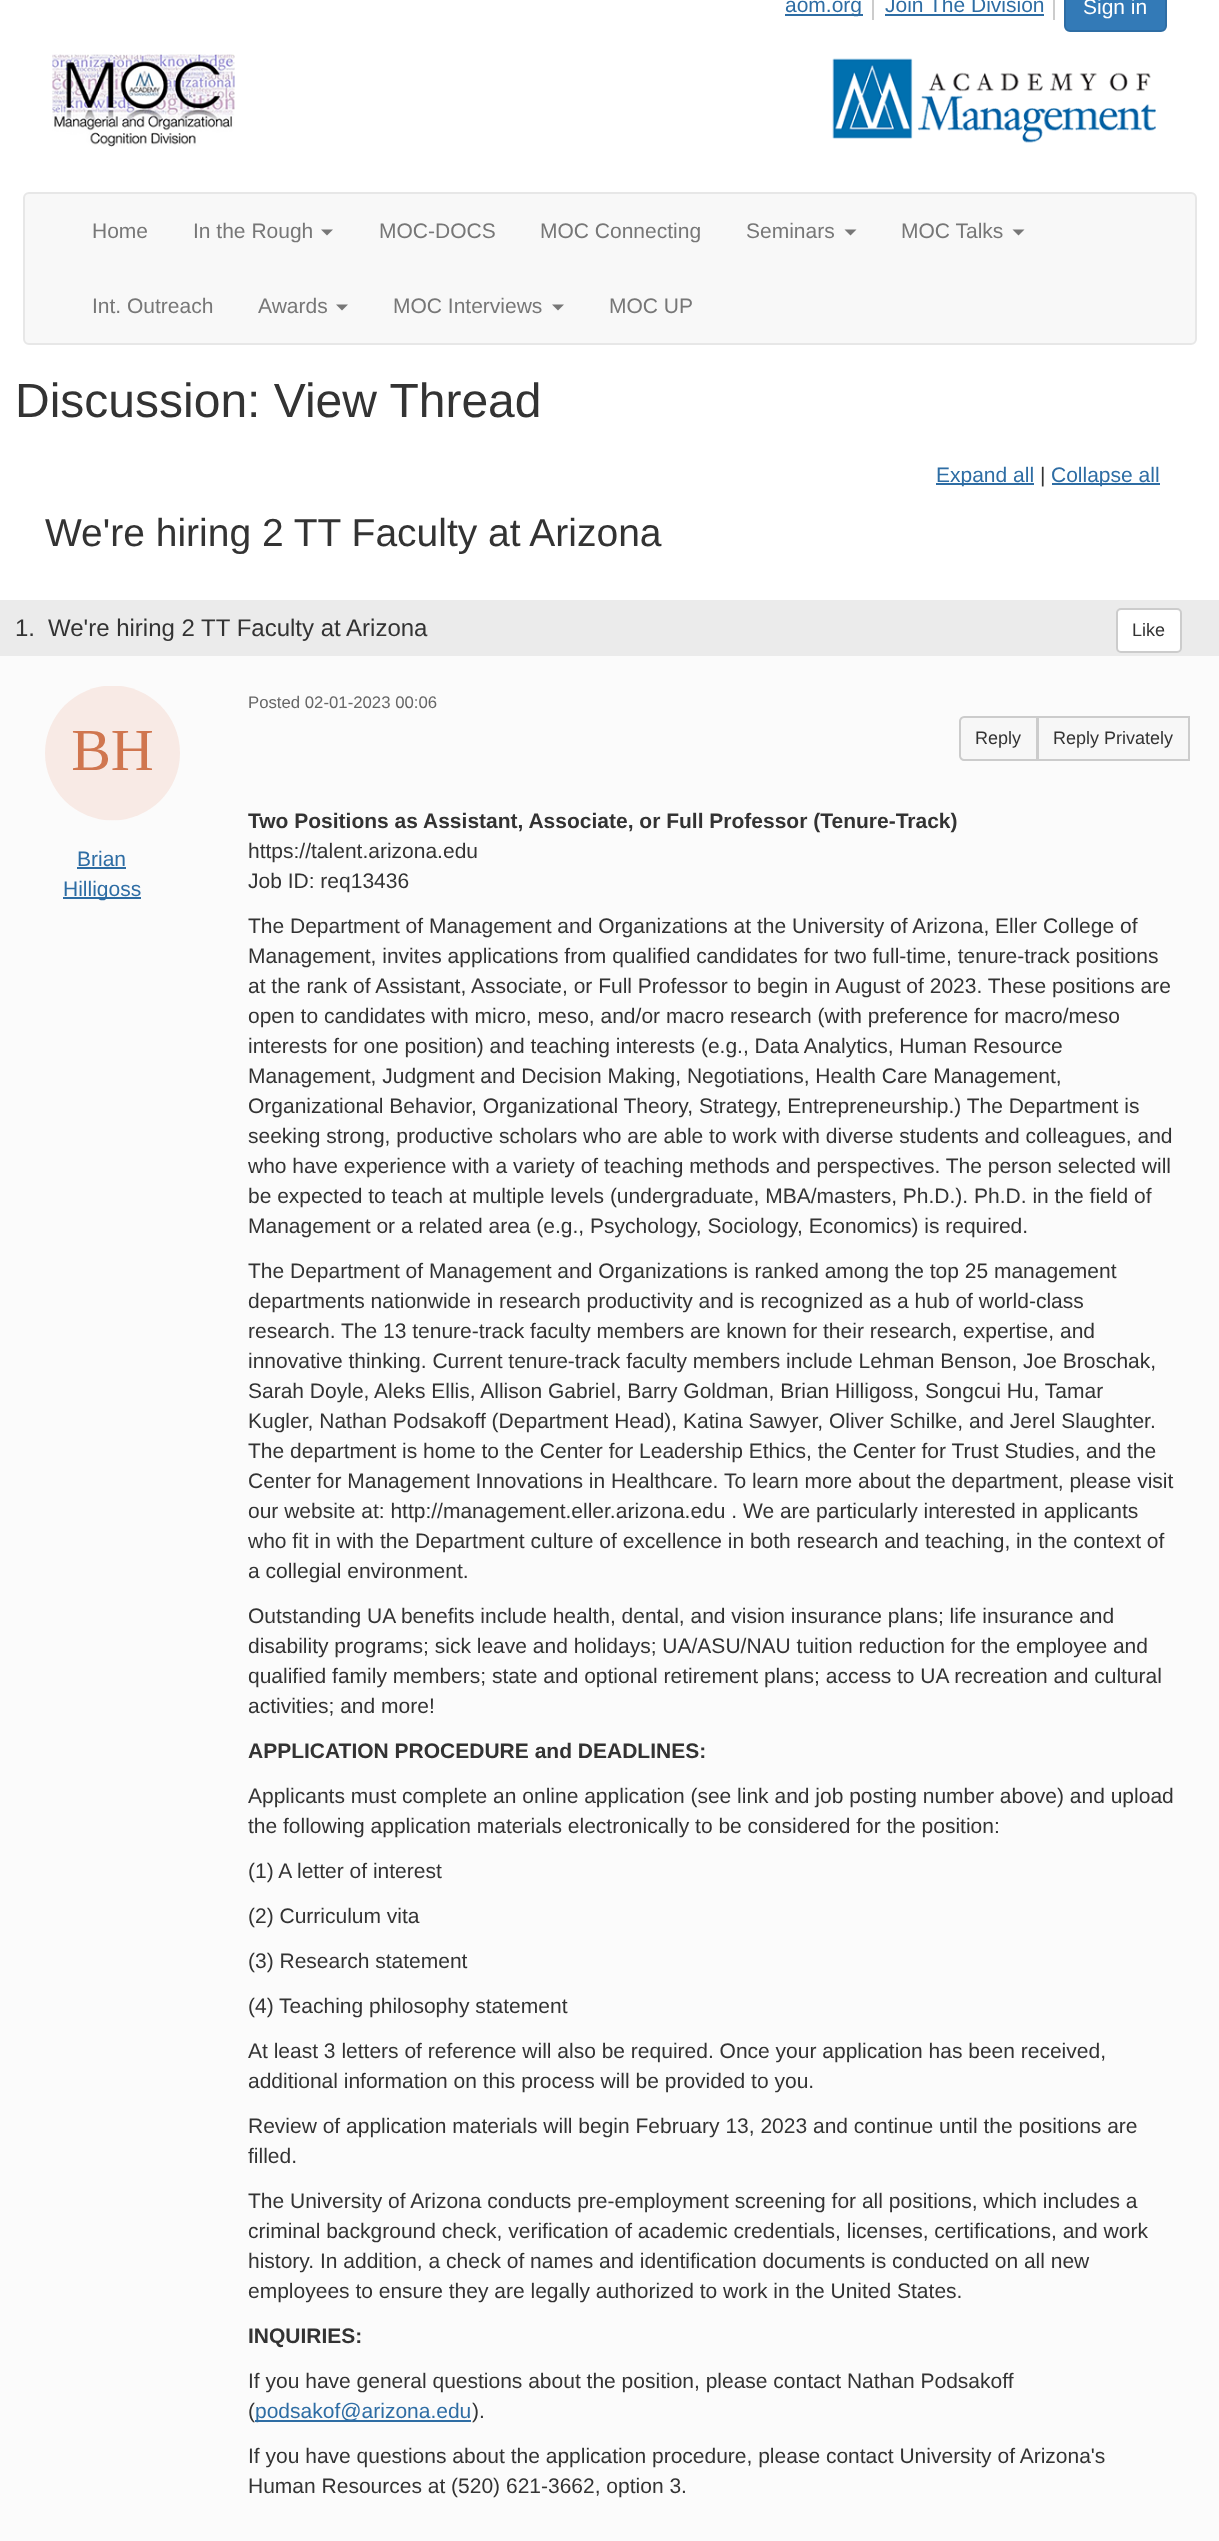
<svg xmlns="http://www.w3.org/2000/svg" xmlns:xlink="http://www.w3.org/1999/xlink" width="1219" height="2541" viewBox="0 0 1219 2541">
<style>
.cls-1{font:21px Liberation Sans;fill:#2e6da4}
.cls-2{font:21px Liberation Sans;fill:#ffffff}
.cls-3{font:21px Liberation Sans;fill:#777777}
.cls-4{font:48px Liberation Sans;fill:#333333}
.cls-5{font:21px Liberation Sans;fill:#333333}
.cls-6{font:39px Liberation Sans;fill:#333333}
.cls-7{font:24px Liberation Sans;fill:#333333}
.cls-8{font:18px Liberation Sans;fill:#333333}
.cls-9{font:16.75px Liberation Sans;fill:#666666}
.cls-10{font:bold 21px Liberation Sans;fill:#333333}
</style>
<rect width="100%" height="100%" fill="#ffffff"/>
<rect fill="#cccccc" x="872" y="0" width="2" height="20"/>
<rect fill="#2e6da4" x="785" y="14" width="78" height="2"/>
<rect fill="#cccccc" x="1053" y="0" width="2" height="20"/>
<rect fill="#2e6da4" x="885" y="14" width="159" height="2"/>
<rect fill="#337ab7" stroke="#2e6da4" stroke-width="2" x="1065" y="-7" width="101" height="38" rx="5"/>
<image xlink:href="image0.png" x="52" y="54" width="1104" height="93"/>
<rect fill="#f8f8f8" stroke="#e7e7e7" stroke-width="2" x="24" y="193" width="1172" height="151" rx="5"/>
<path fill="#777777" d="M321 229.5H333L327 235.5Z"/>
<path fill="#777777" d="M844.5 229.5H856.5L850.5 235.5Z"/>
<path fill="#777777" d="M1012.5 229.5H1024.5L1018.5 235.5Z"/>
<path fill="#777777" d="M336 304.5H348L342 310.5Z"/>
<path fill="#777777" d="M552 304.5H564L558 310.5Z"/>
<rect fill="#2e6da4" x="936" y="483" width="98" height="2"/>
<rect fill="#2e6da4" x="1052" y="483" width="108" height="2"/>
<rect fill="#fbfbfb" x="0" y="656" width="1219" height="1885"/>
<rect fill="#ebebeb" x="0" y="600" width="1219" height="56"/>
<rect fill="#ffffff" stroke="#cccccc" stroke-width="2" x="1117" y="609" width="64" height="43" rx="4"/>
<image xlink:href="image1.png" x="45" y="686" width="135" height="135"/>
<rect fill="#2e6da4" x="77" y="867" width="49" height="2"/>
<rect fill="#2e6da4" x="63" y="897" width="78" height="2"/>
<path fill="#f7f7f7" stroke="#cccccc" stroke-width="2" d="M964 717H1037V760H964C962 760 960 758 960 756V721C960 719 962 717 964 717Z"/>
<rect fill="#f7f7f7" stroke="#cccccc" stroke-width="2" x="1038" y="717" width="151" height="43"/>
<text class="cls-1" x="785" y="12">aom.org</text>
<text class="cls-1" x="885" y="12">Join The Division</text>
<text class="cls-2" x="1083" y="14">Sign in</text>
<text class="cls-3" x="92" y="238">Home</text>
<text class="cls-3" x="193" y="238">In the Rough</text>
<text class="cls-3" x="379" y="238">MOC-DOCS</text>
<text class="cls-3" x="540" y="238">MOC Connecting</text>
<text class="cls-3" x="746" y="238">Seminars</text>
<text class="cls-3" x="901" y="238">MOC Talks</text>
<text class="cls-3" x="92" y="313">Int. Outreach</text>
<text class="cls-3" x="258" y="313">Awards</text>
<text class="cls-3" x="393" y="313">MOC Interviews</text>
<text class="cls-3" x="609" y="313">MOC UP</text>
<text class="cls-4" x="15" y="417">Discussion: View Thread</text>
<text class="cls-1" x="936" y="482">Expand all</text>
<text class="cls-5" x="1040" y="482">|</text>
<text class="cls-1" x="1051" y="482">Collapse all</text>
<text class="cls-6" x="45" y="546">We're hiring 2 TT Faculty at Arizona</text>
<text class="cls-7" x="15" y="636">1.</text>
<text class="cls-7" x="48" y="636">We're hiring 2 TT Faculty at Arizona</text>
<text class="cls-8" x="1132" y="636">Like</text>
<text class="cls-1" x="77" y="866">Brian</text>
<text class="cls-1" x="63" y="896">Hilligoss</text>
<text class="cls-9" x="248" y="708">Posted 02-01-2023 00:06</text>
<text class="cls-8" x="975" y="744">Reply</text>
<text class="cls-8" x="1053" y="744">Reply Privately</text>
<text class="cls-10" x="248" y="828">Two Positions as Assistant, Associate, or Full Professor (Tenure-Track)</text>
<text class="cls-5"><tspan x="248" y="858">https://talent.arizona.edu</tspan><tspan x="248" y="888">Job ID: req13436</tspan></text>
<text class="cls-5"><tspan x="248" y="933">The Department of Management and Organizations at the University of Arizona, Eller College of</tspan><tspan x="248" y="963">Management, invites applications from qualified candidates for two full-time, tenure-track positions</tspan><tspan x="248" y="993">at the rank of Assistant, Associate, or Full Professor to begin in August of 2023. These positions are</tspan><tspan x="248" y="1023">open to candidates with micro, meso, and/or macro research (with preference for macro/meso</tspan><tspan x="248" y="1053">interests for one position) and teaching interests (e.g., Data Analytics, Human Resource</tspan><tspan x="248" y="1083">Management, Judgment and Decision Making, Negotiations, Health Care Management,</tspan><tspan x="248" y="1113">Organizational Behavior, Organizational Theory, Strategy, Entrepreneurship.) The Department is</tspan><tspan x="248" y="1143">seeking strong, productive scholars who are able to work with diverse students and colleagues, and</tspan><tspan x="248" y="1173">who have experience with a variety of teaching methods and perspectives. The person selected will</tspan><tspan x="248" y="1203">be expected to teach at multiple levels (undergraduate, MBA/masters, Ph.D.). Ph.D. in the field of</tspan><tspan x="248" y="1233">Management or a related area (e.g., Psychology, Sociology, Economics) is required.</tspan></text>
<text class="cls-5"><tspan x="248" y="1278">The Department of Management and Organizations is ranked among the top 25 management</tspan><tspan x="248" y="1308">departments nationwide in research productivity and is recognized as a hub of world-class</tspan><tspan x="248" y="1338">research. The 13 tenure-track faculty members are known for their research, expertise, and</tspan><tspan x="248" y="1368">innovative thinking. Current tenure-track faculty members include Lehman Benson, Joe Broschak,</tspan><tspan x="248" y="1398">Sarah Doyle, Aleks Ellis, Allison Gabriel, Barry Goldman, Brian Hilligoss, Songcui Hu, Tamar</tspan><tspan x="248" y="1428">Kugler, Nathan Podsakoff (Department Head), Katina Sawyer, Oliver Schilke, and Jerel Slaughter.</tspan><tspan x="248" y="1458">The department is home to the Center for Leadership Ethics, the Center for Trust Studies, and the</tspan><tspan x="248" y="1488">Center for Management Innovations in Healthcare. To learn more about the department, please visit</tspan><tspan x="248" y="1518">our website at: http://management.eller.arizona.edu . We are particularly interested in applicants</tspan><tspan x="248" y="1548">who fit in with the Department culture of excellence in both research and teaching, in the context of</tspan><tspan x="248" y="1578">a collegial environment.</tspan></text>
<text class="cls-5"><tspan x="248" y="1623">Outstanding UA benefits include health, dental, and vision insurance plans; life insurance and</tspan><tspan x="248" y="1653">disability programs; sick leave and holidays; UA/ASU/NAU tuition reduction for the employee and</tspan><tspan x="248" y="1683">qualified family members; state and optional retirement plans; access to UA recreation and cultural</tspan><tspan x="248" y="1713">activities; and more!</tspan></text>
<text class="cls-10" x="248" y="1758">APPLICATION PROCEDURE and DEADLINES:</text>
<text class="cls-5"><tspan x="248" y="1803">Applicants must complete an online application (see link and job posting number above) and upload</tspan><tspan x="248" y="1833">the following application materials electronically to be considered for the position:</tspan></text>
<text class="cls-5" x="248" y="1878">(1) A letter of interest</text>
<text class="cls-5" x="248" y="1923">(2) Curriculum vita</text>
<text class="cls-5" x="248" y="1968">(3) Research statement</text>
<text class="cls-5" x="248" y="2013">(4) Teaching philosophy statement</text>
<text class="cls-5"><tspan x="248" y="2058">At least 3 letters of reference will also be required. Once your application has been received,</tspan><tspan x="248" y="2088">additional information on this process will be provided to you.</tspan></text>
<text class="cls-5"><tspan x="248" y="2133">Review of application materials will begin February 13, 2023 and continue until the positions are</tspan><tspan x="248" y="2163">filled.</tspan></text>
<text class="cls-5"><tspan x="248" y="2208">The University of Arizona conducts pre-employment screening for all positions, which includes a</tspan><tspan x="248" y="2238">criminal background check, verification of academic credentials, licenses, certifications, and work</tspan><tspan x="248" y="2268">history. In addition, a check of names and identification documents is conducted on all new</tspan><tspan x="248" y="2298">employees to ensure they are legally authorized to work in the United States.</tspan></text>
<text class="cls-10" x="248" y="2343">INQUIRIES:</text>
<text class="cls-5"><tspan x="248" y="2388">If you have general questions about the position, please contact Nathan Podsakoff</tspan><tspan x="248" y="2418">(</tspan></text>
<rect fill="#2e6da4" x="255" y="2420" width="216" height="2"/>
<text class="cls-1" x="255" y="2418">podsakof@arizona.edu</text>
<text class="cls-5" x="472" y="2418">).</text>
<text class="cls-5"><tspan x="248" y="2463">If you have questions about the application procedure, please contact University of Arizona's</tspan><tspan x="248" y="2493">Human Resources at (520) 621-3662, option 3.</tspan></text>
</svg>
